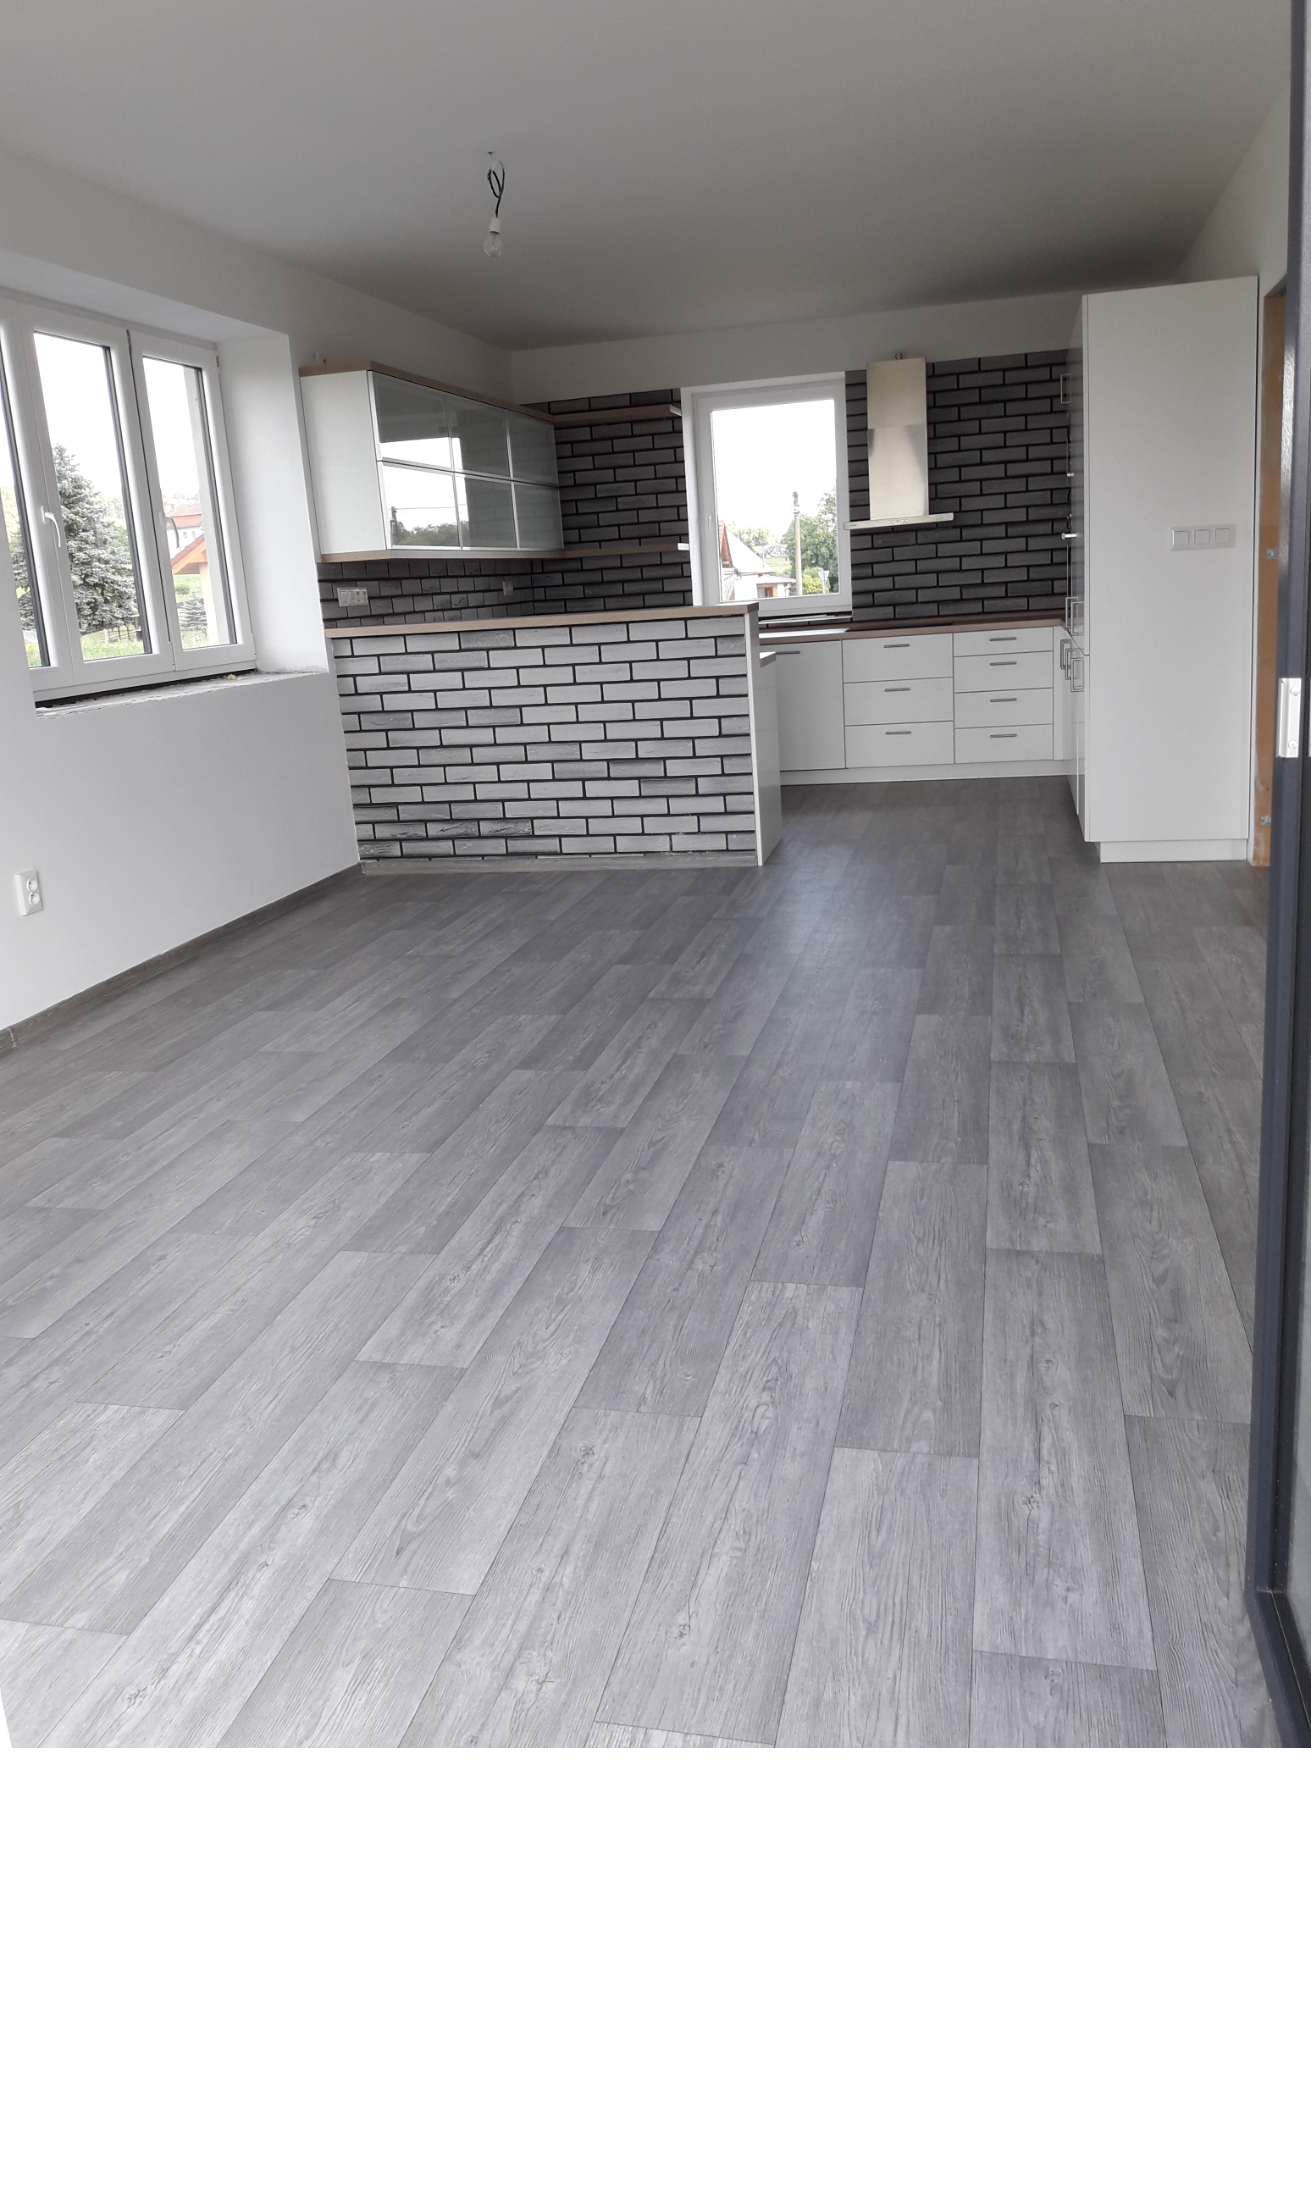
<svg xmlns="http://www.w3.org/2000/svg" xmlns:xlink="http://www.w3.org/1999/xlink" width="1311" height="2190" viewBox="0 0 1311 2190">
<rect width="100%" height="100%" fill="#ffffff"/>
<image xlink:href="image0.png" x="0" y="0" width="1311" height="1748"/>
</svg>
